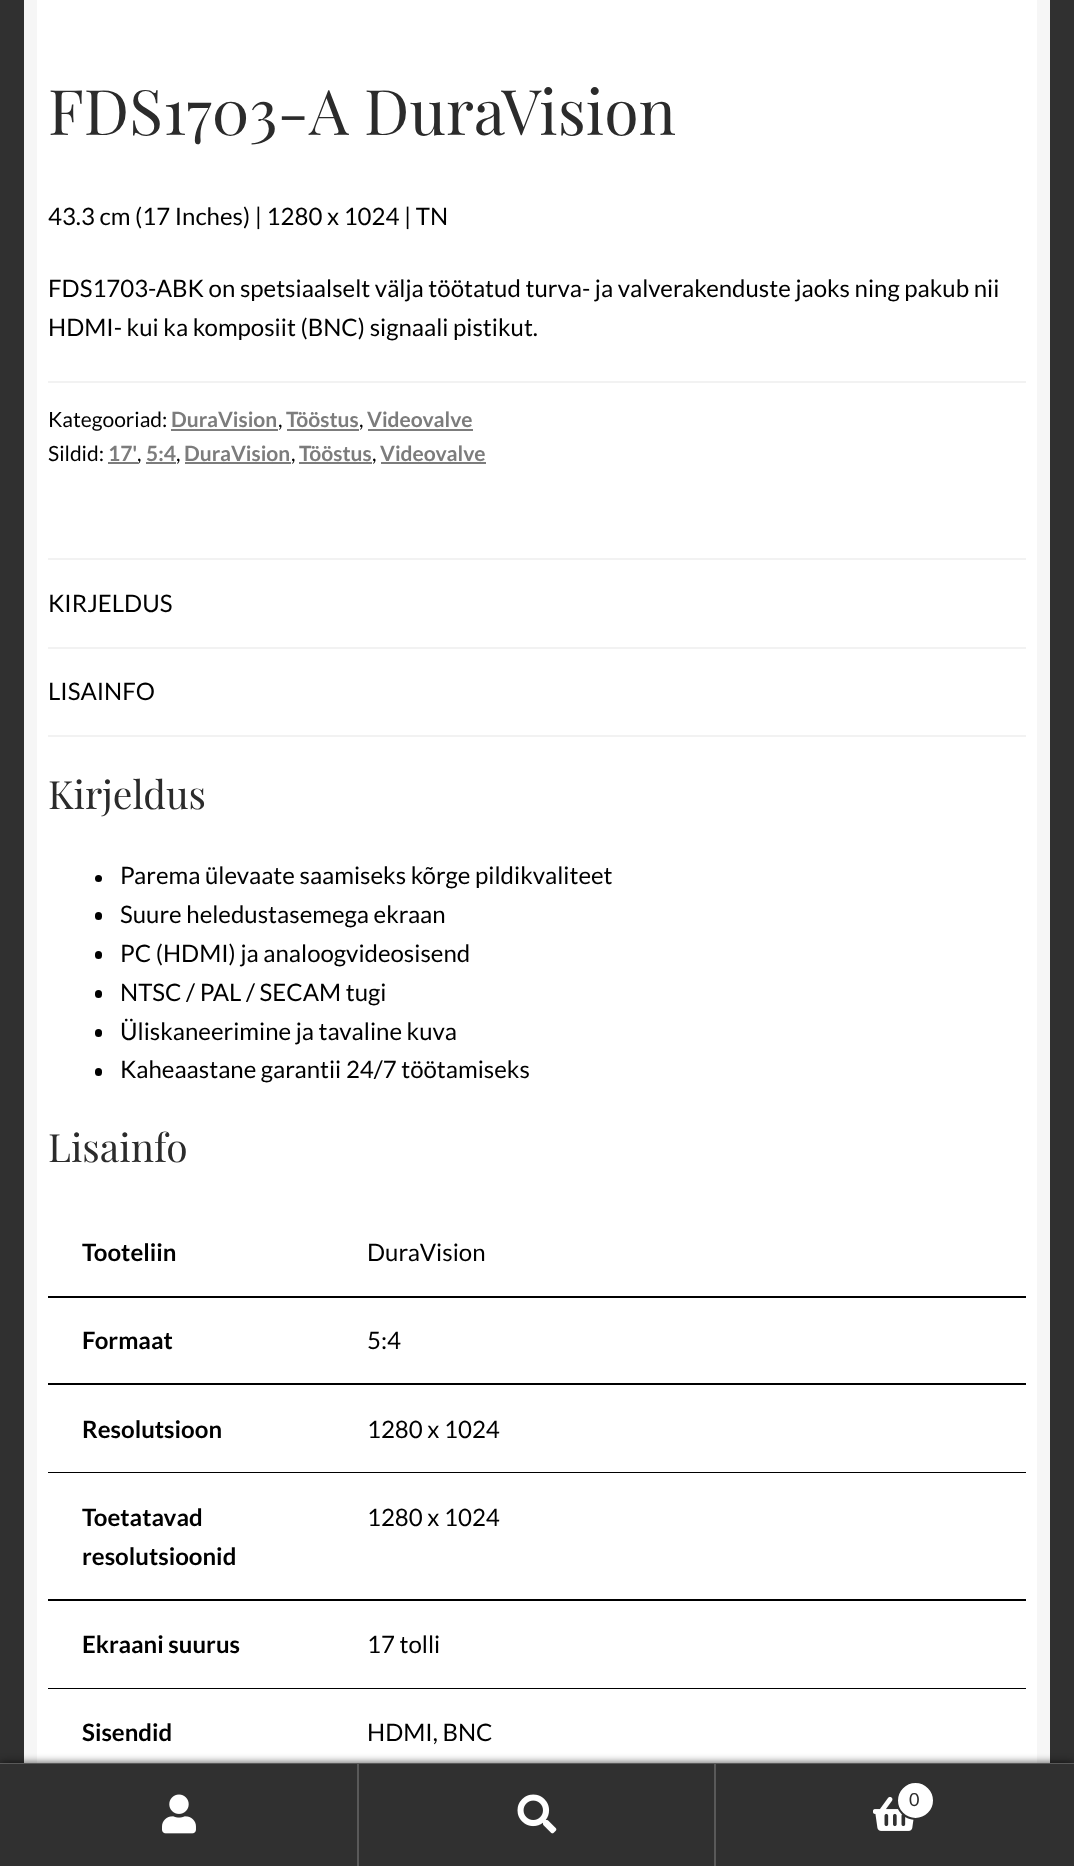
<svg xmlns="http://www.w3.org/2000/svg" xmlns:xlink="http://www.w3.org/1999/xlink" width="1074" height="1866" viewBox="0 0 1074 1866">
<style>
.cls-1{font:62.75px Playfair Display;fill:#2b2b2b}
.cls-2{font:24px Lato;fill:#000000}
.cls-3{font:21px Lato;fill:#000000}
.cls-4{font:bold 21px Lato;fill:#7c7c7c}
.cls-5{font:39px Playfair Display;fill:#2b2b2b}
.cls-6{font:bold 24px Lato;fill:#000000}
.cls-7{font:18px Lato;fill:#2b2b2b}
</style>
<rect width="100%" height="100%" fill="#303030"/>
<rect fill="#ffffff" x="37" y="0" width="1000" height="1763"/>
<rect fill="none" stroke="#f6f6f6" stroke-width="13" x="30.5" y="-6.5" width="1013" height="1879"/>
<rect fill="#f2f2f2" x="48" y="381" width="978" height="2"/>
<rect fill="#7c7c7c" x="171" y="429" width="107" height="2"/>
<rect fill="#7c7c7c" x="287" y="429" width="72" height="2"/>
<rect fill="#7c7c7c" x="368" y="429" width="105" height="2"/>
<rect fill="#7c7c7c" x="108" y="462" width="30" height="2"/>
<rect fill="#7c7c7c" x="146" y="462" width="30" height="2"/>
<rect fill="#7c7c7c" x="185" y="462" width="106" height="2"/>
<rect fill="#7c7c7c" x="299" y="462" width="73" height="2"/>
<rect fill="#7c7c7c" x="381" y="462" width="105" height="2"/>
<rect fill="#f2f2f2" x="48" y="558" width="978" height="2"/>
<rect fill="#f2f2f2" x="48" y="647" width="978" height="2"/>
<rect fill="#f2f2f2" x="48" y="735" width="978" height="2"/>
<circle fill="#000000" cx="98.5" cy="878.5" r="3.5"/>
<rect fill="#000000" x="95" y="912" width="7" height="8" rx="3.5"/>
<rect fill="#000000" x="95" y="951" width="7" height="8" rx="3.5"/>
<rect fill="#000000" x="95" y="990" width="7" height="8" rx="3.5"/>
<rect fill="#000000" x="95" y="1029" width="7" height="8" rx="3.5"/>
<rect fill="#000000" x="95" y="1068" width="7" height="8" rx="3.5"/>
<rect fill="#000000" x="48" y="1296" width="978" height="2"/>
<rect fill="#000000" x="48" y="1383" width="978" height="2"/>
<rect fill="#000000" x="48" y="1472" width="978" height="1"/>
<rect fill="#000000" x="48" y="1599" width="978" height="2"/>
<rect fill="#000000" x="48" y="1688" width="978" height="1"/>
<rect fill="#000000" fill-opacity="0.7" filter="blur(4.5px)" x="0" y="1763" width="1074" height="103"/>
<rect fill="#595959" x="0" y="1763" width="1074" height="1"/>
<rect fill="#303030" x="0" y="1764" width="357" height="102"/>
<rect fill="#595959" x="357" y="1764" width="2" height="102"/>
<image xlink:href="image0.png" x="162" y="1794" width="34" height="40"/>
<rect fill="#303030" x="359" y="1764" width="355" height="102"/>
<rect fill="#595959" x="714" y="1764" width="2" height="102"/>
<image xlink:href="image1.png" x="517" y="1794" width="40" height="40"/>
<rect fill="#303030" x="716" y="1764" width="358" height="102"/>
<image xlink:href="image2.png" x="873" y="1796" width="41" height="35"/>
<circle fill="#ffffff" stroke="#303030" stroke-width="2" cx="915.5" cy="1800.5" r="18.5"/>
<text class="cls-1" x="48" y="135">FDS1703-A DuraVision</text>
<text class="cls-2" x="48" y="225">43.3 cm (17 Inches) | 1280 x 1024 | TN</text>
<text class="cls-2"><tspan x="48" y="297">FDS1703-ABK on spetsiaalselt välja töötatud turva- ja valverakenduste jaoks ning pakub nii</tspan><tspan x="48" y="336">HDMI- kui ka komposiit (BNC) signaali pistikut.</tspan></text>
<text class="cls-3" x="48" y="427">Kategooriad:</text>
<text class="cls-4" x="171" y="427">DuraVision</text>
<text class="cls-3" x="278" y="427">,</text>
<text class="cls-4" x="286" y="427">Tööstus</text>
<text class="cls-3" x="359" y="427">,</text>
<text class="cls-4" x="367" y="427">Videovalve</text>
<text class="cls-3" x="48" y="461">Sildid:</text>
<text class="cls-4" x="108" y="461">17'</text>
<text class="cls-3" x="137" y="461">,</text>
<text class="cls-4" x="146" y="461">5:4</text>
<text class="cls-3" x="176" y="461">,</text>
<text class="cls-4" x="184" y="461">DuraVision</text>
<text class="cls-3" x="291" y="461">,</text>
<text class="cls-4" x="299" y="461">Tööstus</text>
<text class="cls-3" x="372" y="461">,</text>
<text class="cls-4" x="380" y="461">Videovalve</text>
<text class="cls-2" x="48" y="612">KIRJELDUS</text>
<text class="cls-2" x="48" y="700">LISAINFO</text>
<text class="cls-5" x="48" y="809">Kirjeldus</text>
<text class="cls-2"><tspan x="120" y="884">Parema ülevaate saamiseks kõrge pildikvaliteet</tspan><tspan x="120" y="923">Suure heledustasemega ekraan</tspan><tspan x="120" y="962">PC (HDMI) ja analoogvideosisend</tspan><tspan x="120" y="1001">NTSC / PAL / SECAM tugi</tspan><tspan x="120" y="1040">Üliskaneerimine ja tavaline kuva</tspan><tspan x="120" y="1078">Kaheaastane garantii 24/7 töötamiseks</tspan></text>
<text class="cls-5" x="48" y="1162">Lisainfo</text>
<text class="cls-6" x="82" y="1261">Tooteliin</text>
<text class="cls-2" x="367" y="1261">DuraVision</text>
<text class="cls-6" x="82" y="1349">Formaat</text>
<text class="cls-2" x="367" y="1349">5:4</text>
<text class="cls-6" x="82" y="1438">Resolutsioon</text>
<text class="cls-2" x="367" y="1438">1280 x 1024</text>
<text class="cls-6"><tspan x="82" y="1526">Toetatavad</tspan><tspan x="82" y="1565">resolutsioonid</tspan></text>
<text class="cls-2" x="367" y="1526">1280 x 1024</text>
<text class="cls-6" x="82" y="1653">Ekraani suurus</text>
<text class="cls-2" x="367" y="1653">17 tolli</text>
<text class="cls-6" x="82" y="1741">Sisendid</text>
<text class="cls-2" x="367" y="1741">HDMI, BNC</text>
<text class="cls-7" x="909" y="1806">0</text>
</svg>
